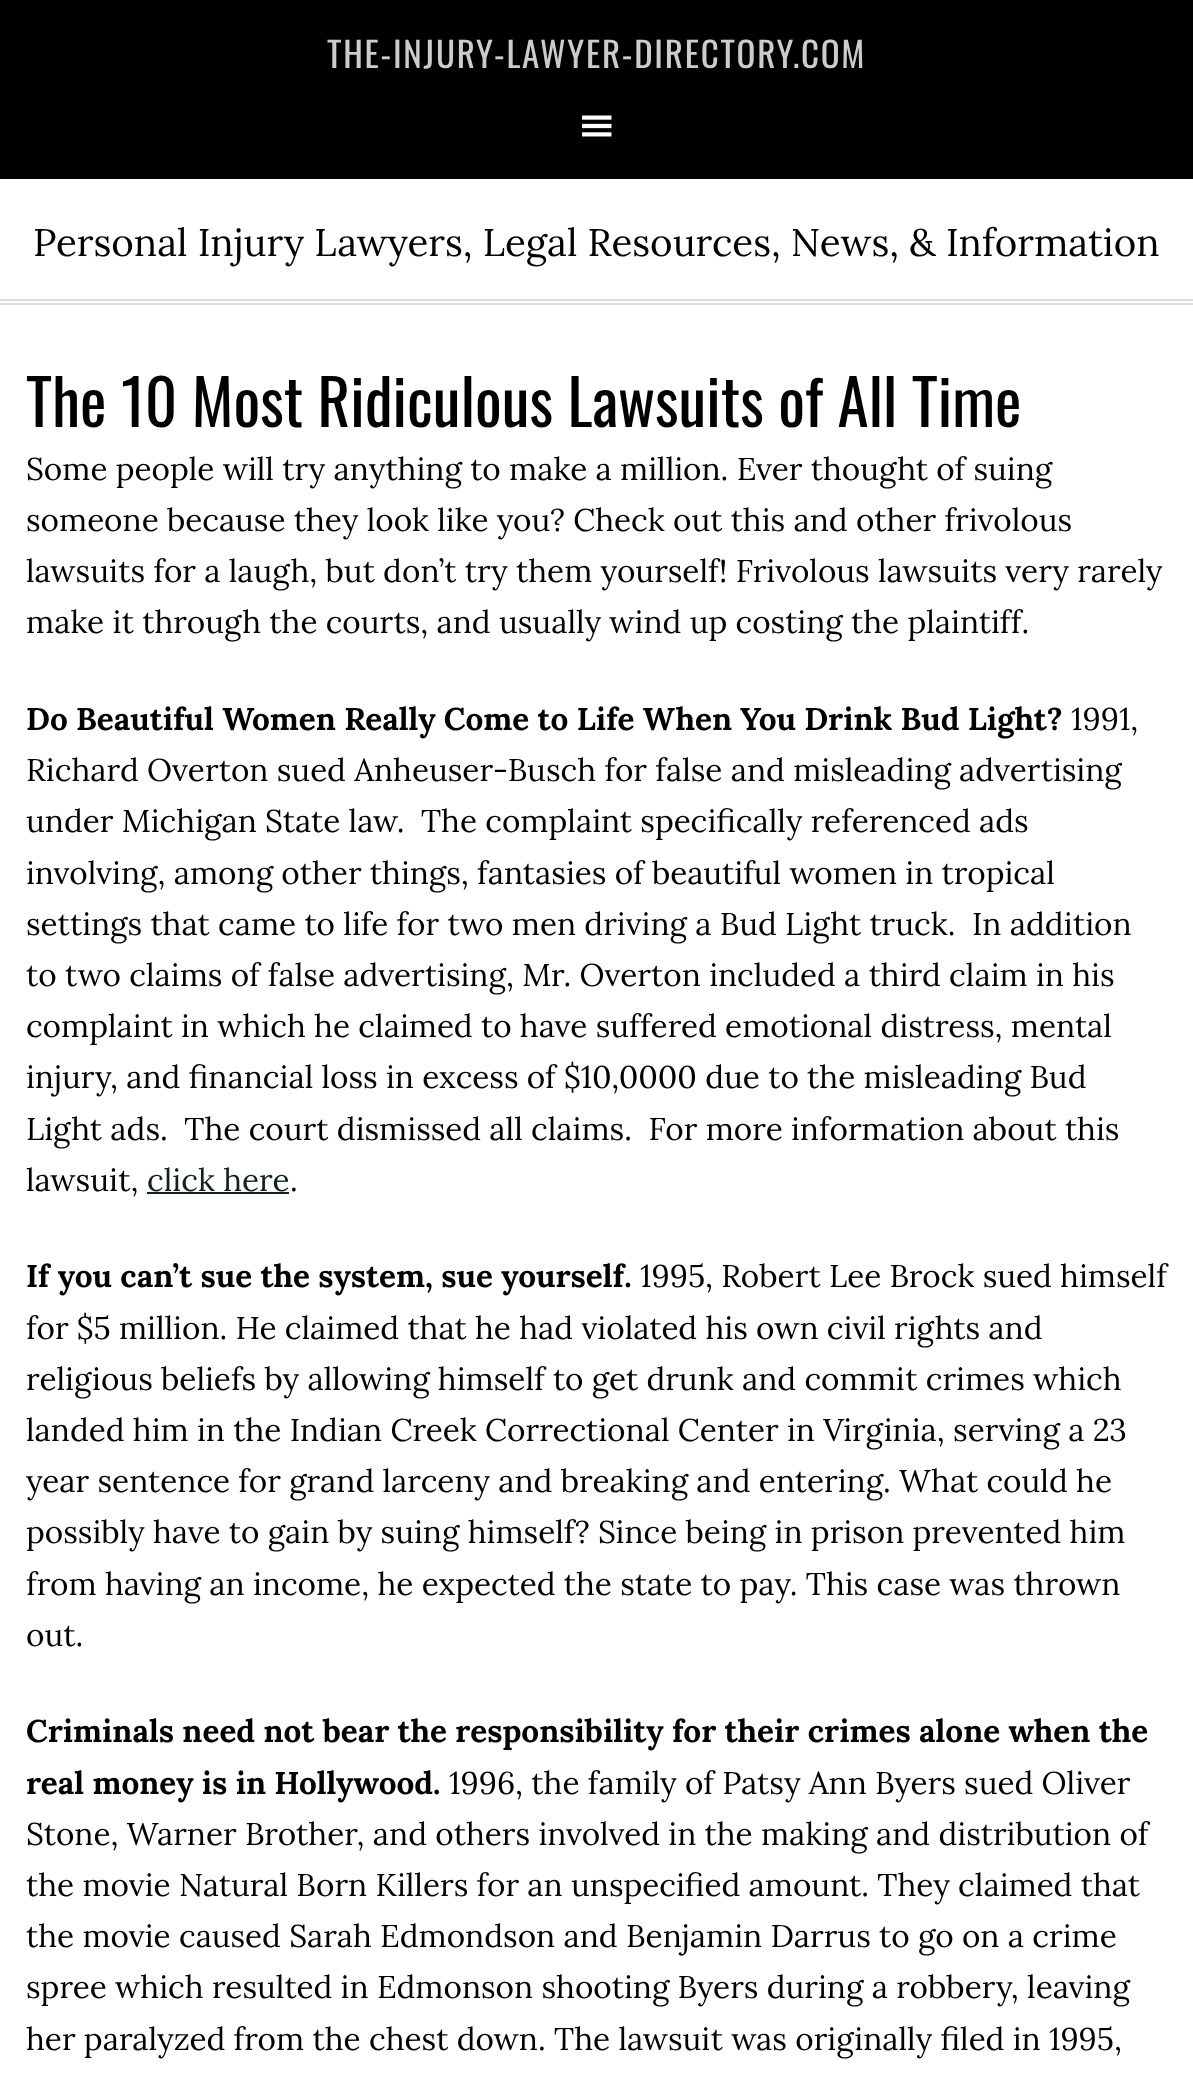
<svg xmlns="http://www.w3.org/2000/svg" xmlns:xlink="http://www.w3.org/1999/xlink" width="1193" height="2093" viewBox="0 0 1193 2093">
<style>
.cls-1{font:35px Oswald;letter-spacing:1.75px;fill:#cccccc}
.cls-2{font:38.5px Lora;fill:#000000}
.cls-3{font:63px Oswald;fill:#000000}
.cls-4{font:31.5px Lora;fill:#000000}
.cls-5{font:bold 31.5px Lora;fill:#000000}
.cls-6{font:31.5px Lora;fill:#102318}
</style>
<rect width="100%" height="100%" fill="#000000"/>
<image xlink:href="image0.png" x="582" y="115" width="30" height="22"/>
<rect fill="#ffffff" x="0" y="179" width="1193" height="1914"/>
<rect fill="#dddddd" x="0" y="299" width="1193" height="2"/>
<rect fill="#dddddd" x="0" y="303" width="1193" height="2"/>
<rect fill="#102318" x="147" y="1192" width="142" height="2"/>
<text class="cls-1" x="327" y="68">THE-INJURY-LAWYER-DIRECTORY.COM</text>
<text class="cls-2" x="33" y="256">Personal Injury Lawyers, Legal Resources, News, &amp; Information</text>
<text class="cls-3" x="26" y="427">The 10 Most Ridiculous Lawsuits of All Time</text>
<text class="cls-4"><tspan x="26" y="480">Some people will try anything to make a million. Ever thought of suing</tspan><tspan x="26" y="531">someone because they look like you? Check out this and other frivolous</tspan><tspan x="26" y="582">lawsuits for a laugh, but don’t try them yourself! Frivolous lawsuits very rarely</tspan><tspan x="26" y="633">make it through the courts, and usually wind up costing the plaintiff.</tspan></text>
<text class="cls-5" x="26" y="730">Do Beautiful Women Really Come to Life When You Drink Bud Light?</text>
<text class="cls-4" x="1071" y="730">1991,</text>
<text class="cls-4" xml:space="preserve"><tspan x="26" y="781">Richard Overton sued Anheuser-Busch for false and misleading advertising</tspan><tspan x="26" y="832">under Michigan State law.  The complaint specifically referenced ads</tspan><tspan x="26" y="884">involving, among other things, fantasies of beautiful women in tropical</tspan><tspan x="26" y="935">settings that came to life for two men driving a Bud Light truck.  In addition</tspan><tspan x="26" y="986">to two claims of false advertising, Mr. Overton included a third claim in his</tspan><tspan x="26" y="1037">complaint in which he claimed to have suffered emotional distress, mental</tspan><tspan x="26" y="1088">injury, and financial loss in excess of $10,0000 due to the misleading Bud</tspan><tspan x="26" y="1140">Light ads.  The court dismissed all claims.  For more information about this</tspan><tspan x="26" y="1191">lawsuit,</tspan></text>
<text class="cls-6" x="147" y="1191">click here</text>
<text class="cls-4" x="290" y="1191">.</text>
<text class="cls-5" x="26" y="1287">If you can’t sue the system, sue yourself.</text>
<text class="cls-4" x="640" y="1287">1995, Robert Lee Brock sued himself</text>
<text class="cls-4"><tspan x="26" y="1339">for $5 million. He claimed that he had violated his own civil rights and</tspan><tspan x="26" y="1390">religious beliefs by allowing himself to get drunk and commit crimes which</tspan><tspan x="26" y="1441">landed him in the Indian Creek Correctional Center in Virginia, serving a 23</tspan><tspan x="26" y="1492">year sentence for grand larceny and breaking and entering. What could he</tspan><tspan x="26" y="1543">possibly have to gain by suing himself? Since being in prison prevented him</tspan><tspan x="26" y="1595">from having an income, he expected the state to pay. This case was thrown</tspan><tspan x="26" y="1646">out.</tspan></text>
<text class="cls-5"><tspan x="26" y="1742">Criminals need not bear the responsibility for their crimes alone when the</tspan><tspan x="26" y="1794">real money is in Hollywood.</tspan></text>
<text class="cls-4" x="449" y="1794">1996, the family of Patsy Ann Byers sued Oliver</text>
<text class="cls-4"><tspan x="26" y="1845">Stone, Warner Brother, and others involved in the making and distribution of</tspan><tspan x="26" y="1896">the movie Natural Born Killers for an unspecified amount. They claimed that</tspan><tspan x="26" y="1947">the movie caused Sarah Edmondson and Benjamin Darrus to go on a crime</tspan><tspan x="26" y="1998">spree which resulted in Edmonson shooting Byers during a robbery, leaving</tspan><tspan x="26" y="2050">her paralyzed from the chest down. The lawsuit was originally filed in 1995,</tspan></text>
</svg>
